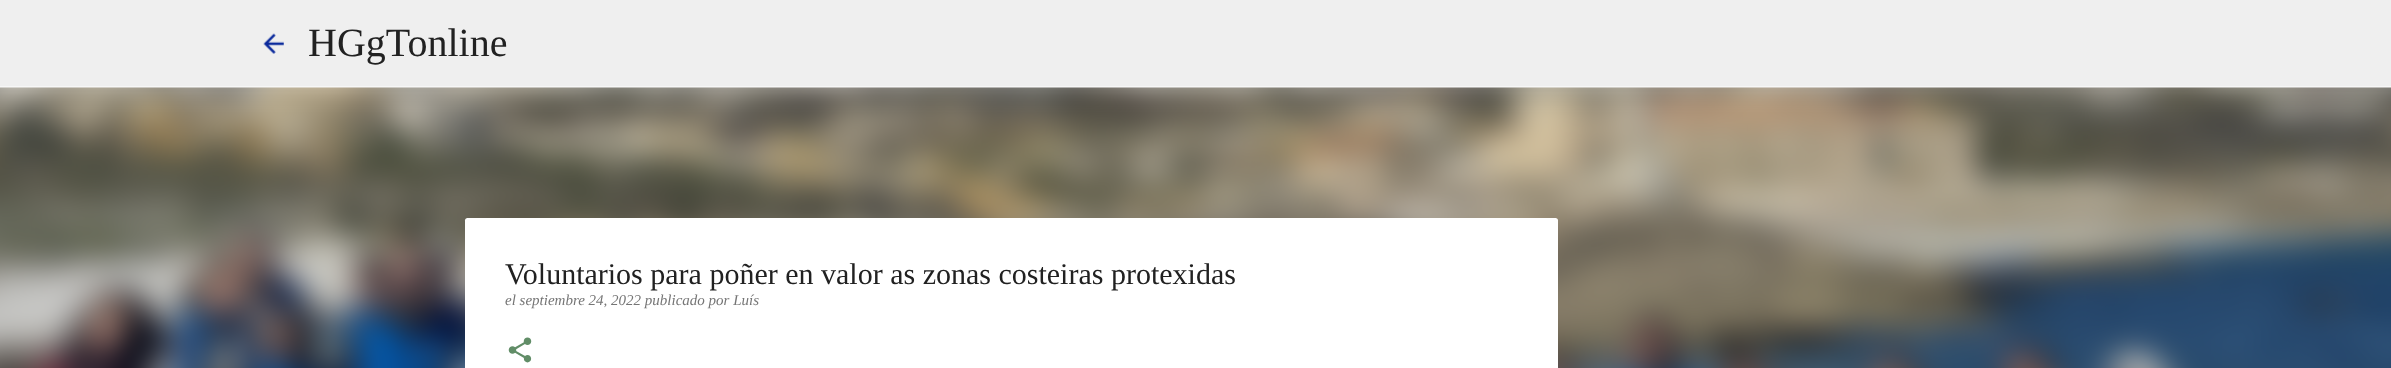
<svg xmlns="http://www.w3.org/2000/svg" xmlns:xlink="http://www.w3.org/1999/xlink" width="2391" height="368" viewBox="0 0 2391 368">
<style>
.cls-1{font:40px Liberation Serif;fill:#212121}
.cls-2{font:30px Liberation Serif;fill:#212121}
.cls-3{font:italic 15px Liberation Serif;fill:#757575}
</style>
<rect width="100%" height="100%" fill="#f7f7f7"/>
<rect fill="#efefef" x="0" y="0" width="2391" height="86"/>
<image xlink:href="image0.png" x="263" y="33" width="21" height="21"/>
<image xlink:href="image2.png" x="0" y="87" width="2391" height="281"/>
<path fill="#ffffff" d="M467.5 218H1555.5C1557 218 1558 219 1558 220.5V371H465V220.5C465 219 466 218 467.5 218Z"/>
<image xlink:href="image1.png" x="508" y="337" width="24" height="26"/>
<text class="cls-1" x="308" y="56">HGgTonline</text>
<text class="cls-2" x="505" y="284">Voluntarios para poñer en valor as zonas costeiras protexidas</text>
<text class="cls-3" x="505" y="305">el septiembre 24, 2022 publicado por Luís</text>
</svg>
